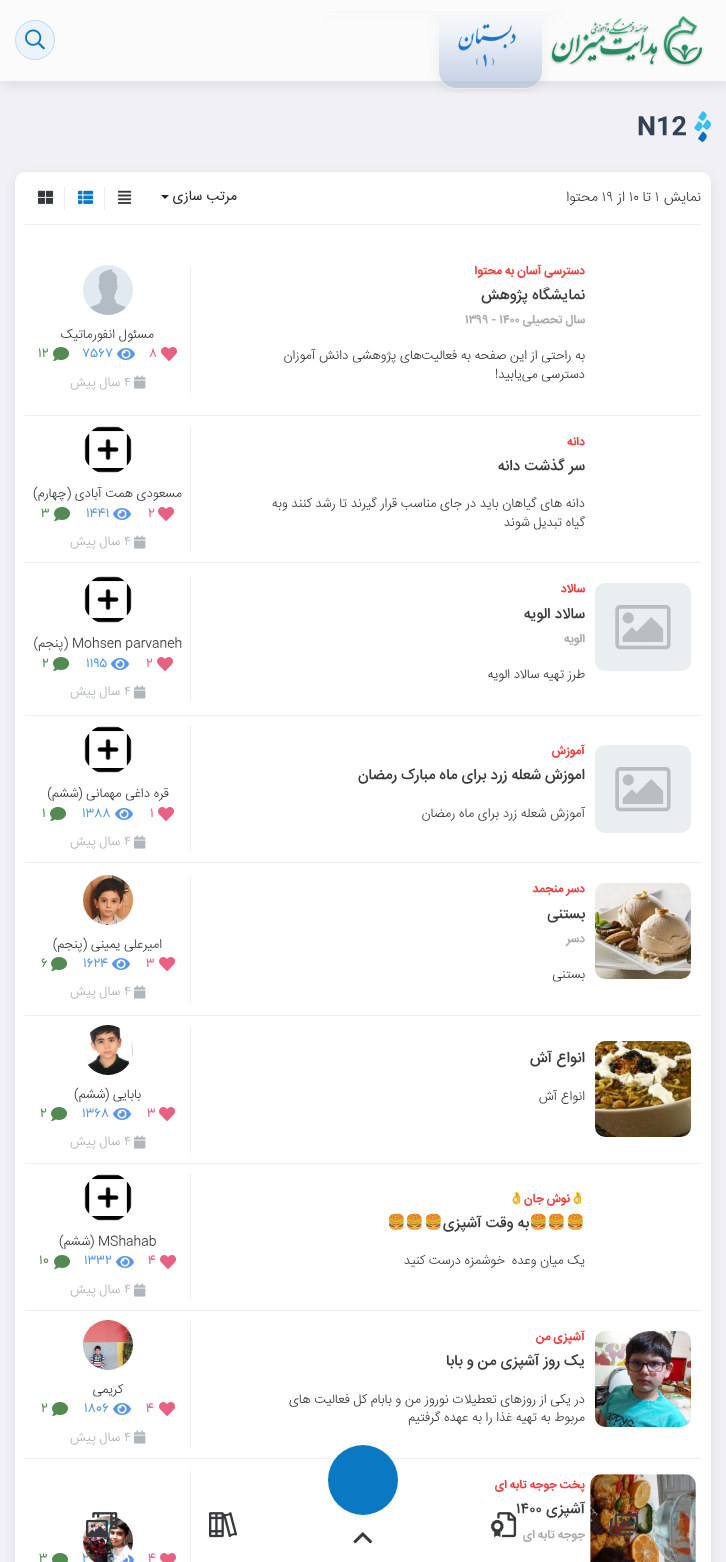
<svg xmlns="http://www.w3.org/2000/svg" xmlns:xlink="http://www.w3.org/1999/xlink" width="726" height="1562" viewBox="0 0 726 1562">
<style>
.cls-1{font:bold 25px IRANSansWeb;fill:#334155}
.cls-2{font:300 14px IRANSansWeb;direction:rtl;fill:#373a3c}
.cls-3{font:300 14px IRANSansWeb;fill:#373a3c}
.cls-4{font:14px IRANSansWeb;direction:rtl;fill:#212529}
.cls-5{font:bold 12px IRANSansWeb;direction:rtl;fill:#ec3f3f}
.cls-6{font:500 15px IRANSansWeb;direction:rtl;fill:#373a3c}
.cls-7{font:bold 12px IRANSansWeb;direction:rtl;fill:#acacac}
.cls-8{font:bold 12px IRANSansWeb;fill:#acacac}
.cls-9{font:300 13px IRANSansWeb;direction:rtl;fill:#373a3c}
.cls-10{font:13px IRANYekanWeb;fill:#e86182}
.cls-11{font:13px IRANYekanWeb;fill:#5797ea}
.cls-12{font:13px IRANYekanWeb;fill:#538a51}
.cls-13{font:300 13px IRANSansWeb;fill:#afb6bc}
.cls-14{font:300 13px IRANSansWeb;direction:rtl;fill:#afb6bc}
.cls-15{font:300 13px IRANSansWeb;fill:#373a3c}
.cls-16{font:bold 12px Noto Color Emoji;direction:rtl;fill:#ec3f3f}
.cls-17{font:15px Noto Color Emoji;direction:rtl;fill:#373a3c}
.cls-18{font:500 15px IRANSansWeb;fill:#373a3c}
</style>
<rect width="100%" height="100%" fill="#f1f1f5"/>
<rect fill="#000000" fill-opacity="0.08" filter="blur(6px)" x="0" y="4" width="726" height="81"/>
<rect fill="#fbfbfc" x="0" y="0" width="726" height="81"/>
<image xlink:href="image0.png" x="550" y="16" width="154" height="51"/>
<image xlink:href="image1.png" x="325" y="11" width="239" height="82"/>
<image xlink:href="image2.png" x="458" y="23" width="58" height="44"/>
<circle fill="#ecf4fb" cx="35" cy="40" r="20"/>
<circle fill="none" stroke="#0a78c3" stroke-opacity="0.2" cx="35" cy="40" r="19.5"/>
<image xlink:href="image3.png" x="25" y="29" width="20" height="21"/>
<image xlink:href="image4.png" x="694" y="111" width="17" height="31"/>
<rect fill="#000000" fill-opacity="0.08" filter="blur(6px)" x="15" y="176" width="696" height="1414" rx="10"/>
<rect fill="#ffffff" x="15" y="172" width="696" height="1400" rx="10"/>
<rect fill="#eeeeee" x="25" y="224" width="676" height="1"/>
<path fill="#212529" d="M161 195H169L165 199Z"/>
<rect fill="#eeeeee" x="104" y="187" width="1" height="23"/>
<image xlink:href="image5.png" x="118" y="190" width="14" height="14"/>
<rect fill="#eeeeee" x="64" y="187" width="1" height="23"/>
<image xlink:href="image6.png" x="78" y="190" width="15" height="14"/>
<image xlink:href="image7.png" x="38" y="190" width="15" height="14"/>
<rect fill="#eeeeee" x="25" y="415" width="676" height="1"/>
<rect fill="#eeeeee" x="190" y="266" width="1" height="127"/>
<image xlink:href="image8.png" x="83" y="265" width="50" height="50"/>
<image xlink:href="image9.png" x="161" y="347" width="16" height="14"/>
<image xlink:href="image10.png" x="117" y="348" width="18" height="12"/>
<image xlink:href="image11.png" x="53" y="347" width="16" height="14"/>
<image xlink:href="image12.png" x="134" y="375" width="12" height="14"/>
<rect fill="#eeeeee" x="25" y="562" width="676" height="1"/>
<rect fill="#eeeeee" x="190" y="426" width="1" height="126"/>
<image xlink:href="image13.png" x="84" y="426" width="48" height="47"/>
<image xlink:href="image9.png" x="158" y="507" width="16" height="14"/>
<image xlink:href="image10.png" x="113" y="508" width="18" height="12"/>
<image xlink:href="image11.png" x="54" y="507" width="16" height="14"/>
<image xlink:href="image12.png" x="134" y="535" width="12" height="14"/>
<rect fill="#eeeeee" x="25" y="715" width="676" height="1"/>
<image xlink:href="image14.png" x="595" y="583" width="96" height="88"/>
<rect fill="#eeeeee" x="190" y="576" width="1" height="126"/>
<image xlink:href="image13.png" x="84" y="576" width="48" height="47"/>
<image xlink:href="image9.png" x="157" y="657" width="16" height="14"/>
<image xlink:href="image10.png" x="111" y="658" width="18" height="12"/>
<image xlink:href="image11.png" x="53" y="657" width="16" height="14"/>
<image xlink:href="image12.png" x="134" y="685" width="12" height="14"/>
<rect fill="#eeeeee" x="25" y="862" width="676" height="1"/>
<image xlink:href="image14.png" x="595" y="745" width="96" height="88"/>
<rect fill="#eeeeee" x="190" y="726" width="1" height="126"/>
<image xlink:href="image15.png" x="84" y="726" width="48" height="47"/>
<image xlink:href="image9.png" x="158" y="807" width="16" height="14"/>
<image xlink:href="image10.png" x="115" y="808" width="18" height="12"/>
<image xlink:href="image11.png" x="50" y="807" width="16" height="14"/>
<image xlink:href="image12.png" x="134" y="835" width="12" height="14"/>
<rect fill="#eeeeee" x="25" y="1015" width="676" height="1"/>
<image xlink:href="image16.png" x="595" y="883" width="96" height="96"/>
<rect fill="#eeeeee" x="190" y="876" width="1" height="127"/>
<image xlink:href="image17.png" x="83" y="875" width="50" height="50"/>
<image xlink:href="image9.png" x="159" y="957" width="16" height="14"/>
<image xlink:href="image10.png" x="112" y="958" width="18" height="12"/>
<image xlink:href="image11.png" x="51" y="957" width="16" height="14"/>
<image xlink:href="image12.png" x="134" y="985" width="12" height="14"/>
<rect fill="#eeeeee" x="25" y="1163" width="676" height="1"/>
<image xlink:href="image18.png" x="595" y="1041" width="96" height="96"/>
<rect fill="#eeeeee" x="190" y="1026" width="1" height="127"/>
<image xlink:href="image19.png" x="84" y="1025" width="49" height="50"/>
<image xlink:href="image9.png" x="159" y="1107" width="16" height="14"/>
<image xlink:href="image10.png" x="113" y="1108" width="18" height="12"/>
<image xlink:href="image11.png" x="51" y="1107" width="16" height="14"/>
<image xlink:href="image12.png" x="134" y="1135" width="12" height="14"/>
<rect fill="#eeeeee" x="25" y="1310" width="676" height="1"/>
<rect fill="#eeeeee" x="190" y="1174" width="1" height="126"/>
<image xlink:href="image13.png" x="84" y="1174" width="48" height="47"/>
<image xlink:href="image9.png" x="160" y="1255" width="16" height="14"/>
<image xlink:href="image10.png" x="116" y="1256" width="18" height="12"/>
<image xlink:href="image11.png" x="54" y="1255" width="16" height="14"/>
<image xlink:href="image12.png" x="134" y="1283" width="12" height="14"/>
<rect fill="#eeeeee" x="25" y="1458" width="676" height="1"/>
<image xlink:href="image20.png" x="595" y="1331" width="96" height="96"/>
<rect fill="#eeeeee" x="190" y="1321" width="1" height="127"/>
<image xlink:href="image21.png" x="83" y="1320" width="50" height="50"/>
<image xlink:href="image9.png" x="159" y="1402" width="16" height="14"/>
<image xlink:href="image10.png" x="113" y="1403" width="18" height="12"/>
<image xlink:href="image11.png" x="52" y="1402" width="16" height="14"/>
<image xlink:href="image12.png" x="134" y="1430" width="12" height="14"/>
<image xlink:href="image22.png" x="590" y="1474" width="106" height="88"/>
<rect fill="#eeeeee" x="190" y="1471" width="1" height="91"/>
<image xlink:href="image24.png" x="160" y="1553" width="16" height="9"/>
<image xlink:href="image25.png" x="122" y="1554" width="12" height="8"/>
<image xlink:href="image26.png" x="52" y="1553" width="16" height="9"/>
<circle fill="#0a78c3" cx="363" cy="1480" r="35"/>
<image xlink:href="image27.png" x="610" y="1513" width="29" height="23"/>
<image xlink:href="image29.png" x="353" y="1532" width="20" height="12"/>
<image xlink:href="image30.png" x="209" y="1512" width="29" height="26"/>
<text class="cls-1" x="637" y="134">N12</text>
<text class="cls-2" x="701" y="201">نمایش</text>
<text class="cls-3" x="655" y="201">۱</text>
<text class="cls-2" x="651" y="201">تا</text>
<text class="cls-3" x="629" y="201">۱۰</text>
<text class="cls-2" x="625" y="201">از</text>
<text class="cls-3" x="602" y="201">۱۹</text>
<text class="cls-2" x="598" y="201">محتوا</text>
<text class="cls-4" x="237" y="200">مرتب سازی</text>
<text class="cls-5" x="585" y="274">دسترسی آسان به محتوا</text>
<text class="cls-6" x="585" y="299">نمایشگاه پژوهش</text>
<text class="cls-7" x="585" y="323">سال تحصیلی</text>
<text class="cls-8" x="465" y="323">۱۳۹۹ - ۱۴۰۰</text>
<text class="cls-9"><tspan x="585" y="359">به راحتی از این صفحه به فعالیت‌های پژوهشی دانش آموزان</tspan><tspan x="585" y="378">دسترسی می‌یابید!</tspan></text>
<text class="cls-9" x="154" y="338">مسئول انفورماتیک</text>
<text class="cls-10" x="149" y="357">۸</text>
<text class="cls-11" x="82" y="357">۷۵۶۷</text>
<text class="cls-12" x="38" y="357">۱۲</text>
<text class="cls-13" x="124" y="386">۴</text>
<text class="cls-14" x="120" y="386">سال</text>
<text class="cls-14" x="96" y="386">پیش</text>
<text class="cls-5" x="585" y="445">دانه</text>
<text class="cls-6" x="585" y="470">سر گذشت دانه</text>
<text class="cls-9"><tspan x="585" y="507">دانه های گیاهان باید در جای مناسب قرار گیرند تا رشد کنند وبه</tspan><tspan x="585" y="526">گیاه تبدیل شوند</tspan></text>
<text class="cls-9" x="182" y="497">مسعودی همت آبادی (چهارم)</text>
<text class="cls-10" x="148" y="517">۲</text>
<text class="cls-11" x="86" y="517">۱۴۴۱</text>
<text class="cls-12" x="41" y="517">۳</text>
<text class="cls-13" x="124" y="545">۴</text>
<text class="cls-14" x="120" y="545">سال</text>
<text class="cls-14" x="96" y="545">پیش</text>
<text class="cls-5" x="585" y="592">سالاد</text>
<text class="cls-6" x="585" y="618">سالاد الویه</text>
<text class="cls-7" x="585" y="642">الویه</text>
<text class="cls-9" x="585" y="678">طرز تهیه سالاد الویه</text>
<text class="cls-15" x="72" y="647">Mohsen parvaneh</text>
<text class="cls-9" x="68" y="647">(پنجم)</text>
<text class="cls-10" x="146" y="667">۲</text>
<text class="cls-11" x="86" y="667">۱۱۹۵</text>
<text class="cls-12" x="42" y="667">۲</text>
<text class="cls-13" x="124" y="695">۴</text>
<text class="cls-14" x="120" y="695">سال</text>
<text class="cls-14" x="96" y="695">پیش</text>
<text class="cls-5" x="585" y="754">آموزش</text>
<text class="cls-6" x="585" y="779">اموزش شعله زرد برای ماه مبارک رمضان</text>
<text class="cls-9" x="585" y="817">آموزش شعله زرد برای ماه رمضان</text>
<text class="cls-9" x="169" y="797">قره داغی مهمانی (ششم)</text>
<text class="cls-10" x="150" y="817">۱</text>
<text class="cls-11" x="82" y="817">۱۳۸۸</text>
<text class="cls-12" x="42" y="817">۱</text>
<text class="cls-13" x="124" y="845">۴</text>
<text class="cls-14" x="120" y="845">سال</text>
<text class="cls-14" x="96" y="845">پیش</text>
<text class="cls-5" x="585" y="892">دسر منجمد</text>
<text class="cls-6" x="585" y="918">بستنی</text>
<text class="cls-7" x="585" y="942">دسر</text>
<text class="cls-9" x="585" y="978">بستنی</text>
<text class="cls-9" x="162" y="948">امیرعلی یمینی (پنجم)</text>
<text class="cls-10" x="146" y="967">۳</text>
<text class="cls-11" x="83" y="967">۱۶۲۴</text>
<text class="cls-12" x="41" y="967">۶</text>
<text class="cls-13" x="124" y="995">۴</text>
<text class="cls-14" x="120" y="995">سال</text>
<text class="cls-14" x="96" y="995">پیش</text>
<text class="cls-6" x="585" y="1062">انواع آش</text>
<text class="cls-9" x="585" y="1100">انواع آش</text>
<text class="cls-9" x="141" y="1098">بابایی (ششم)</text>
<text class="cls-10" x="147" y="1117">۳</text>
<text class="cls-11" x="82" y="1117">۱۳۶۸</text>
<text class="cls-12" x="40" y="1117">۲</text>
<text class="cls-13" x="124" y="1145">۴</text>
<text class="cls-14" x="120" y="1145">سال</text>
<text class="cls-14" x="96" y="1145">پیش</text>
<text class="cls-5" x="570" y="1202">نوش جان</text>
<text class="cls-16" x="585" y="1202">👌</text>
<text class="cls-16" x="524" y="1202">👌</text>
<text class="cls-17" x="585" y="1227">🍔🍔🍔</text>
<text class="cls-6" x="529" y="1227">به وقت آشپزی</text>
<text class="cls-17" x="443" y="1227">🍔🍔🍔</text>
<text class="cls-9" x="585" y="1264">یک میان وعده</text>
<text class="cls-9" x="505" y="1264">خوشمزه درست کنید</text>
<text class="cls-15" x="98" y="1245">MShahab</text>
<text class="cls-9" x="94" y="1245">(ششم)</text>
<text class="cls-10" x="148" y="1264">۴</text>
<text class="cls-11" x="84" y="1264">۱۳۳۲</text>
<text class="cls-12" x="39" y="1264">۱۰</text>
<text class="cls-13" x="124" y="1293">۴</text>
<text class="cls-14" x="120" y="1293">سال</text>
<text class="cls-14" x="96" y="1293">پیش</text>
<text class="cls-5" x="585" y="1340">آشپزی من</text>
<text class="cls-6" x="585" y="1365">یک روز آشپزی من و بابا</text>
<text class="cls-9"><tspan x="585" y="1403">در یکی از روزهای تعطیلات نوروز من و بابام کل فعالیت های</tspan><tspan x="585" y="1421">مربوط به تهیه غذا را به عهده گرفتیم</tspan></text>
<text class="cls-9" x="123" y="1393">کریمی</text>
<text class="cls-10" x="146" y="1412">۴</text>
<text class="cls-11" x="84" y="1412">۱۸۰۶</text>
<text class="cls-12" x="41" y="1412">۲</text>
<text class="cls-13" x="124" y="1441">۴</text>
<text class="cls-14" x="120" y="1441">سال</text>
<text class="cls-14" x="96" y="1441">پیش</text>
<text class="cls-5" x="585" y="1488">پخت جوجه تابه ای</text>
<text class="cls-6" x="585" y="1513">آشپزی</text>
<text class="cls-18" x="516" y="1513">۱۴۰۰</text>
<text class="cls-7" x="585" y="1538">جوجه تابه ای</text>
<text class="cls-10" x="148" y="1562">۴</text>
<text class="cls-11" x="82" y="1562">۲</text>
<image xlink:href="image23.png" x="83" y="1516" width="50" height="46"/>
<text class="cls-12" x="39" y="1562">۳</text>
<image xlink:href="image28.png" x="491" y="1512" width="26" height="26"/>
<image xlink:href="image31.png" x="86" y="1512" width="32" height="26"/>
</svg>
